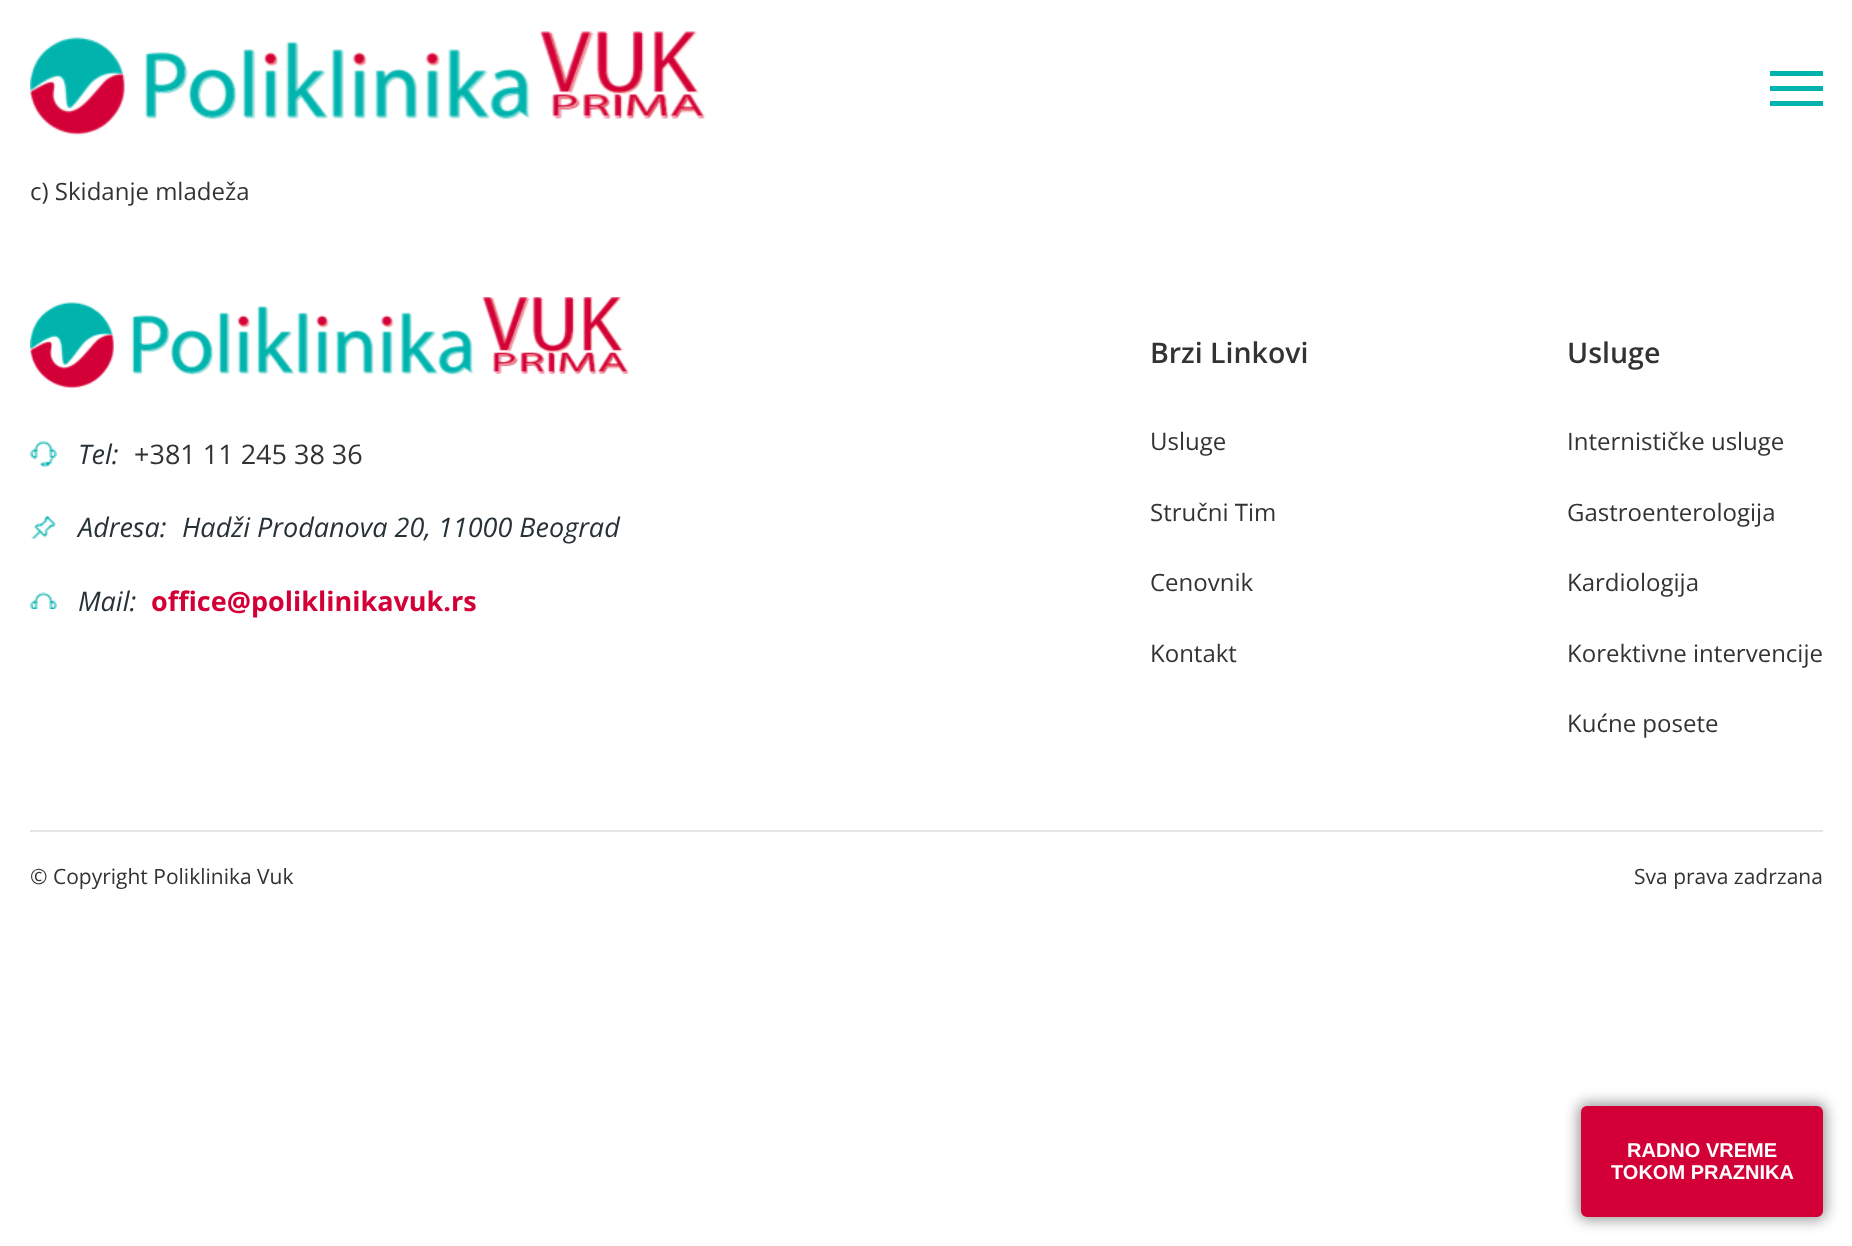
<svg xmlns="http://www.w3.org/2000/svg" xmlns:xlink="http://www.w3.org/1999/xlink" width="1852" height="1246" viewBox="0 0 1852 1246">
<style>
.cls-1{font:24px Open Sans;fill:#333333}
.cls-2{font:italic 27px Open Sans;fill:#263238}
.cls-3{font:27px Open Sans;fill:#333333}
.cls-4{font:bold 27px Open Sans;fill:#d30037}
.cls-5{font:600 28.5px Open Sans;fill:#333333}
.cls-6{font:21px Open Sans;fill:#333333}
.cls-7{font:bold 20px Liberation Sans;fill:#ffffff}
</style>
<rect width="100%" height="100%" fill="#ffffff"/>
<image xlink:href="image0.png" x="30" y="31" width="676" height="104"/>
<rect fill="#00b3ad" x="1770" y="71" width="53" height="5"/>
<rect fill="#00b3ad" x="1770" y="86" width="53" height="5"/>
<rect fill="#00b3ad" x="1770" y="101" width="53" height="5"/>
<rect fill="#e5e5e5" x="30" y="830" width="1793" height="2"/>
<image xlink:href="image1.png" x="30" y="297" width="599" height="92"/>
<image xlink:href="image2.png" x="30" y="441" width="27" height="26"/>
<image xlink:href="image3.png" x="31" y="516" width="25" height="23"/>
<image xlink:href="image4.png" x="30" y="592" width="27" height="17"/>
<rect fill="#000000" fill-opacity="0.4" filter="blur(7px)" x="1578" y="1103" width="248" height="117" rx="9"/>
<rect fill="#d30037" stroke="#d30037" stroke-width="3" x="1582.5" y="1107.5" width="239" height="108" rx="4.5"/>
<text class="cls-1" x="30" y="200">c) Skidanje mladeža</text>
<text class="cls-2" x="78" y="464">Tel:</text>
<text class="cls-3" x="134" y="464">+381 11 245 38 36</text>
<text class="cls-2" x="78" y="537">Adresa:</text>
<text class="cls-2" x="182" y="537">Hadži Prodanova 20, 11000 Beograd</text>
<text class="cls-2" x="78" y="611">Mail:</text>
<text class="cls-4" x="151" y="611">office@poliklinikavuk.rs</text>
<text class="cls-5" x="1150" y="363">Brzi Linkovi</text>
<text class="cls-1" x="1150" y="450">Usluge</text>
<text class="cls-1" x="1150" y="521">Stručni Tim</text>
<text class="cls-1" x="1150" y="591">Cenovnik</text>
<text class="cls-1" x="1150" y="662">Kontakt</text>
<text class="cls-5" x="1567" y="363">Usluge</text>
<text class="cls-1" x="1567" y="450">Internističke usluge</text>
<text class="cls-1" x="1567" y="521">Gastroenterologija</text>
<text class="cls-1" x="1567" y="591">Kardiologija</text>
<text class="cls-1" x="1567" y="662">Korektivne intervencije</text>
<text class="cls-1" x="1567" y="732">Kućne posete</text>
<text class="cls-6" x="30" y="884">© Copyright Poliklinika Vuk</text>
<text class="cls-6" x="1634" y="884">Sva prava zadrzana</text>
<text class="cls-7" x="1627" y="1157">RADNO VREME</text>
<text class="cls-7" x="1611" y="1179">TOKOM PRAZNIKA</text>
</svg>
